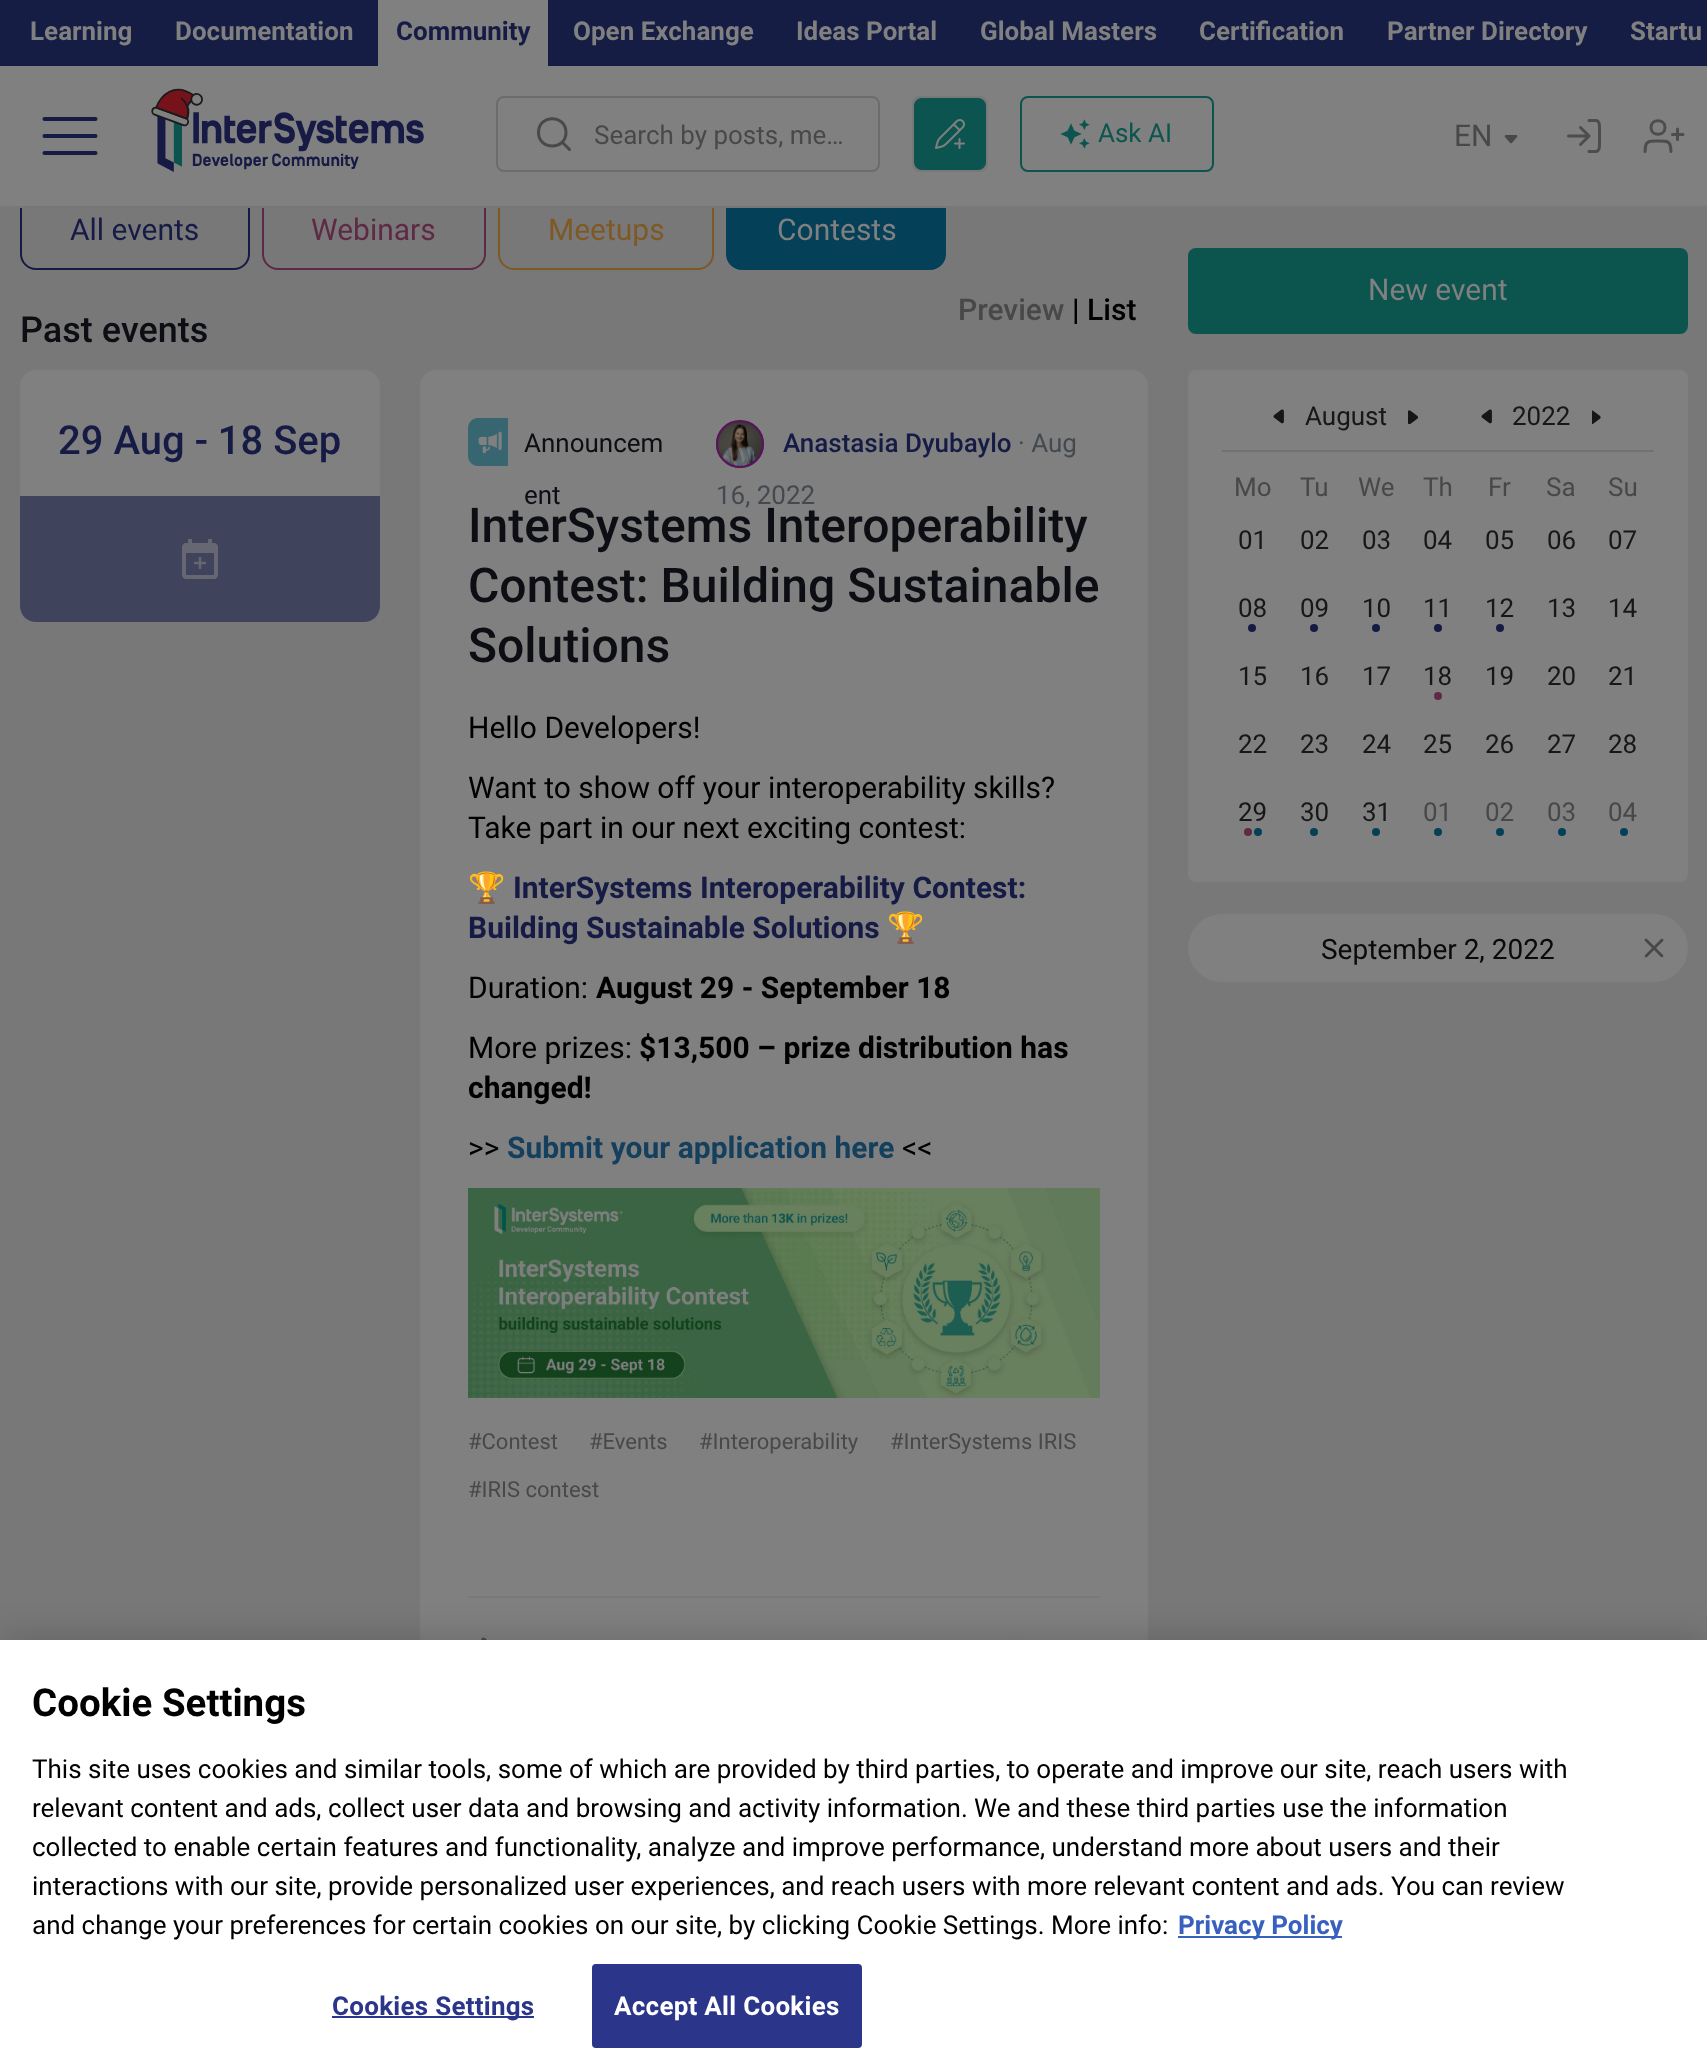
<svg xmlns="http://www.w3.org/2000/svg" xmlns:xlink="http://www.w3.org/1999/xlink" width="1707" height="2067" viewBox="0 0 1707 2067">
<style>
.cls-1{font:bold 26px Roboto;fill:#808080}
.cls-2{font:bold 26px Roboto;fill:#161b45}
.cls-3{font:26px Roboto;fill:#484849}
.cls-4{font:26px Roboto;fill:#0c554f}
.cls-5{font:30px Roboto;fill:#484849}
.cls-6{font:30px Roboto;fill:#161b45}
.cls-7{font:30px Roboto;fill:#5e2944}
.cls-8{font:30px Roboto;fill:#7e5925}
.cls-9{font:30px Roboto;fill:#808080}
.cls-10{font:500 30px Roboto;fill:#484849}
.cls-11{font:500 30px Roboto;fill:#000000}
.cls-12{font:500 36px Roboto;fill:#0d0e14}
.cls-13{font:500 40px Roboto;fill:#161b45}
.cls-14{font:26px Roboto;fill:#0d0e14}
.cls-15{font:500 26px Roboto;fill:#161b45}
.cls-16{font:26px Roboto;fill:#43494f}
.cls-17{font:500 48px Roboto;fill:#0d0e14}
.cls-18{font:30px Roboto;fill:#000000}
.cls-19{font:30px Noto Color Emoji;fill:#000000}
.cls-20{font:bold 30px Roboto;fill:#161b45}
.cls-21{font:bold 30px Roboto;fill:#000000}
.cls-22{font:bold 30px Roboto;fill:#15405d}
.cls-23{font:22px Roboto;fill:#484849}
.cls-24{font:26px Roboto;fill:#161717}
.cls-25{font:28px Roboto;fill:#0b0a0a}
.cls-26{font:bold 38.5px Roboto;fill:#000000}
.cls-27{font:26.02px Roboto;fill:#000000}
.cls-28{font:bold 26.02px Roboto;fill:#3860be}
.cls-29{font:bold 26.02px Roboto;letter-spacing:0.25px;fill:#2b3589}
.cls-30{font:bold 26.02px Roboto;letter-spacing:0.25px;fill:#ffffff}
</style>
<rect width="100%" height="100%" fill="#787879"/>
<rect fill="none" stroke="#161b45" stroke-width="2" x="21" y="187" width="228" height="82" rx="15"/>
<rect fill="none" stroke="#5e2944" stroke-width="2" x="263" y="187" width="222" height="82" rx="15"/>
<rect fill="none" stroke="#7e5925" stroke-width="2" x="499" y="187" width="214" height="82" rx="15"/>
<rect fill="#044057" stroke="#044057" stroke-width="2" x="727" y="187" width="218" height="82" rx="15"/>
<rect fill="#777777" x="20" y="206" width="926" height="2"/>
<rect fill="#151d44" x="0" y="0" width="1707" height="66"/>
<rect fill="#808080" x="378" y="0" width="170" height="66"/>
<rect fill="#808080" x="0" y="66" width="1707" height="140"/>
<path fill="none" stroke="#161b45" stroke-width="4" stroke-linecap="round" stroke-linejoin="round" d="M44.5 136H95.5M44.5 119H95.5M44.5 153H95.5"/>
<image xlink:href="image0.png" x="151" y="88" width="273" height="84"/>
<path fill="none" stroke="#494949" stroke-width="3" stroke-linecap="round" stroke-linejoin="round" d="M569.5 149.5L562 142M566 132.5C566 150.5 538.5 150.5 538.5 132.5C538.5 114 566 114 566 132.5Z"/>
<rect fill="none" stroke="#6c6c6c" stroke-width="2" x="497" y="97" width="382" height="74" rx="7"/>
<rect fill="#787878" x="912" y="96" width="76" height="76" rx="8"/>
<image xlink:href="image1.png" x="914" y="98" width="72" height="72"/>
<image xlink:href="image2.png" x="1060" y="119" width="30" height="30"/>
<rect fill="none" stroke="#0c554f" stroke-width="2" x="1021" y="97" width="192" height="74" rx="7"/>
<image xlink:href="image3.png" x="1504" y="135" width="14" height="9"/>
<path fill="none" stroke="#4d4d4d" stroke-width="3" stroke-linecap="round" stroke-linejoin="round" d="M1589 120.5H1596.5C1600 121.5 1599.5 125.5 1599.5 128V144C1599.5 146.5 1600 150.5 1596.5 151.5H1589M1580.5 144.5L1589 136M1589 136L1580.5 127.5M1589 136H1568.5"/>
<path fill="none" stroke="#4d4d4d" stroke-width="3" stroke-linecap="round" stroke-linejoin="round" d="M1671 151.5L1670.5 146.5C1669.5 140 1663 141 1658 141C1653 141 1646.5 140 1645.5 146.5L1645 151.5M1677.5 129V139.5M1683 134.5H1672.5M1665 127.5C1665 136.5 1651 136.5 1651 127.5C1651 118.5 1665 118.5 1665 127.5Z"/>
<rect fill="#808080" x="20" y="370" width="360" height="252" rx="16"/>
<path fill="#161b45" fill-opacity="0.6" d="M20 496H380V606C380 615 373 622 364 622H36C27 622 20 615 20 606Z"/>
<image xlink:href="image4.png" x="182" y="539" width="36" height="40"/>
<rect fill="#808080" x="420" y="370" width="728" height="1358" rx="16"/>
<image xlink:href="image5.png" x="468" y="418" width="40" height="48"/>
<image xlink:href="image6.png" x="716" y="420" width="48" height="48"/>
<circle fill="none" stroke="#5b115f" stroke-width="2" cx="740" cy="444" r="23"/>
<image xlink:href="image7.png" x="468" y="1188" width="632" height="210"/>
<rect fill="#787879" x="468" y="1596" width="632" height="2"/>
<image xlink:href="image8.png" x="481" y="1637" width="6" height="3"/>
<image xlink:href="image9.png" x="1014" y="1639" width="4" height="1"/>
<rect fill="#0c554f" x="1188" y="248" width="500" height="86" rx="8"/>
<rect fill="#808080" x="1188" y="370" width="500" height="512" rx="8"/>
<rect fill="#707174" x="1222" y="450" width="432" height="2"/>
<image xlink:href="image10.png" x="1273" y="409" width="11" height="15"/>
<image xlink:href="image11.png" x="1408" y="410" width="10" height="14"/>
<image xlink:href="image10.png" x="1481" y="409" width="11" height="15"/>
<image xlink:href="image12.png" x="1592" y="410" width="9" height="14"/>
<circle fill="#161b45" cx="1252" cy="628" r="4"/>
<circle fill="#161b45" cx="1314" cy="628" r="4"/>
<circle fill="#161b45" cx="1376" cy="628" r="4"/>
<circle fill="#161b45" cx="1438" cy="628" r="4"/>
<circle fill="#161b45" cx="1500" cy="628" r="4"/>
<circle fill="#5e2944" cx="1438" cy="696" r="4"/>
<circle fill="#5e2944" cx="1248" cy="832" r="4"/>
<circle fill="#044057" cx="1258" cy="832" r="4"/>
<circle fill="#044057" cx="1314" cy="832" r="4"/>
<circle fill="#044057" cx="1376" cy="832" r="4"/>
<circle fill="#044057" cx="1438" cy="832" r="4"/>
<circle fill="#044057" cx="1500" cy="832" r="4"/>
<circle fill="#044057" cx="1562" cy="832" r="4"/>
<circle fill="#044057" cx="1624" cy="832" r="4"/>
<rect fill="#808080" x="1188" y="914" width="500" height="68" rx="34"/>
<image xlink:href="image13.png" x="1644" y="938" width="20" height="20"/>
<rect fill="#000000" fill-opacity="0.2" filter="blur(18px)" x="0" y="1640" width="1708" height="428"/>
<rect fill="#ffffff" x="0" y="1640" width="1707" height="427"/>
<rect fill="#3860be" x="1178" y="1936" width="164" height="2"/>
<rect fill="#2b3589" x="332" y="2016" width="202" height="2"/>
<rect fill="#2b3589" stroke="#2b3589" stroke-width="2" x="593" y="1965" width="268" height="82" rx="3"/>
<text class="cls-1" x="30" y="40">Learning</text>
<text class="cls-1" x="175" y="40">Documentation</text>
<text class="cls-2" x="396" y="40">Community</text>
<text class="cls-1" x="573" y="40">Open Exchange</text>
<text class="cls-1" x="796" y="40">Ideas Portal</text>
<text class="cls-1" x="980" y="40">Global Masters</text>
<text class="cls-1" x="1199" y="40">Certification</text>
<text class="cls-1" x="1387" y="40">Partner Directory</text>
<text class="cls-1" x="1630" y="40">Startu</text>
<text class="cls-3" x="594" y="144">Search by posts, me…</text>
<text class="cls-4" x="1098" y="142">Ask AI</text>
<text class="cls-5" x="1454" y="146">EN</text>
<text class="cls-6" x="70" y="240">All events</text>
<text class="cls-7" x="311" y="240">Webinars</text>
<text class="cls-8" x="548" y="240">Meetups</text>
<text class="cls-9" x="777" y="240">Contests</text>
<text class="cls-10" x="958" y="320">Preview</text>
<text class="cls-11" x="1072" y="320">| List</text>
<text class="cls-12" x="20" y="342">Past events</text>
<text class="cls-13" x="58" y="454">29 Aug - 18 Sep</text>
<text class="cls-14" x="524" y="452">Announcem</text>
<text class="cls-14" x="524" y="504">ent</text>
<text class="cls-15" x="783" y="452">Anastasia Dyubaylo</text>
<text class="cls-16" x="1018" y="452">· Aug</text>
<text class="cls-16" x="716" y="504">16, 2022</text>
<text class="cls-17"><tspan x="468" y="542">InterSystems Interoperability</tspan><tspan x="468" y="602">Contest: Building Sustainable</tspan><tspan x="468" y="662">Solutions</tspan></text>
<text class="cls-18" x="468" y="738">Hello Developers!</text>
<text class="cls-18"><tspan x="468" y="798">Want to show off your interoperability skills?</tspan><tspan x="468" y="838">Take part in our next exciting contest:</tspan></text>
<text class="cls-19" x="468" y="898">🏆</text>
<text class="cls-20" x="513" y="898">InterSystems Interoperability Contest:</text>
<text class="cls-20" x="468" y="938">Building Sustainable Solutions</text>
<text class="cls-19" x="887" y="938">🏆</text>
<text class="cls-18" x="468" y="998">Duration:</text>
<text class="cls-21" x="596" y="998">August 29 - September 18</text>
<text class="cls-18" x="468" y="1058">More prizes:</text>
<text class="cls-21" x="639" y="1058">$13,500 – prize distribution has</text>
<text class="cls-21" x="468" y="1098">changed!</text>
<text class="cls-18" x="468" y="1158">&gt;&gt;</text>
<text class="cls-22" x="507" y="1158">Submit your application here</text>
<text class="cls-18" x="902" y="1158">&lt;&lt;</text>
<text class="cls-23" x="468" y="1449">#Contest</text>
<text class="cls-23" x="589" y="1449">#Events</text>
<text class="cls-23" x="699" y="1449">#Interoperability</text>
<text class="cls-23" x="890" y="1449">#InterSystems IRIS</text>
<text class="cls-23" x="468" y="1497">#IRIS contest</text>
<text class="cls-9" x="1368" y="300">New event</text>
<text class="cls-24" x="1305" y="425">August</text>
<text class="cls-24" x="1512" y="425">2022</text>
<text class="cls-3" x="1234" y="496">Mo</text>
<text class="cls-3" x="1300" y="496">Tu</text>
<text class="cls-3" x="1358" y="496">We</text>
<text class="cls-3" x="1423" y="496">Th</text>
<text class="cls-3" x="1488" y="496">Fr</text>
<text class="cls-3" x="1546" y="496">Sa</text>
<text class="cls-3" x="1608" y="496">Su</text>
<text class="cls-24" x="1238" y="549">01</text>
<text class="cls-24" x="1300" y="549">02</text>
<text class="cls-24" x="1362" y="549">03</text>
<text class="cls-24" x="1423" y="549">04</text>
<text class="cls-24" x="1485" y="549">05</text>
<text class="cls-24" x="1547" y="549">06</text>
<text class="cls-24" x="1608" y="549">07</text>
<text class="cls-24" x="1238" y="617">08</text>
<text class="cls-24" x="1300" y="617">09</text>
<text class="cls-24" x="1362" y="617">10</text>
<text class="cls-24" x="1423" y="617">11</text>
<text class="cls-24" x="1485" y="617">12</text>
<text class="cls-24" x="1547" y="617">13</text>
<text class="cls-24" x="1608" y="617">14</text>
<text class="cls-24" x="1238" y="685">15</text>
<text class="cls-24" x="1300" y="685">16</text>
<text class="cls-24" x="1362" y="685">17</text>
<text class="cls-24" x="1423" y="685">18</text>
<text class="cls-24" x="1485" y="685">19</text>
<text class="cls-24" x="1547" y="685">20</text>
<text class="cls-24" x="1608" y="685">21</text>
<text class="cls-24" x="1238" y="753">22</text>
<text class="cls-24" x="1300" y="753">23</text>
<text class="cls-24" x="1362" y="753">24</text>
<text class="cls-24" x="1423" y="753">25</text>
<text class="cls-24" x="1485" y="753">26</text>
<text class="cls-24" x="1547" y="753">27</text>
<text class="cls-24" x="1608" y="753">28</text>
<text class="cls-24" x="1238" y="821">29</text>
<text class="cls-24" x="1300" y="821">30</text>
<text class="cls-24" x="1362" y="821">31</text>
<text class="cls-3" x="1423" y="821">01</text>
<text class="cls-3" x="1485" y="821">02</text>
<text class="cls-3" x="1547" y="821">03</text>
<text class="cls-3" x="1608" y="821">04</text>
<text class="cls-25" x="1321" y="959">September 2, 2022</text>
<text class="cls-26" x="32" y="1716">Cookie Settings</text>
<text class="cls-27"><tspan x="32" y="1778">This site uses cookies and similar tools, some of which are provided by third parties, to operate and improve our site, reach users with</tspan><tspan x="32" y="1817">relevant content and ads, collect user data and browsing and activity information.</tspan></text>
<text class="cls-27" x="974" y="1817">We and these third parties use the information</text>
<text class="cls-27"><tspan x="32" y="1856">collected to enable certain features and functionality, analyze and improve performance, understand more about users and their</tspan><tspan x="32" y="1895">interactions with our site, provide personalized user experiences, and reach users with more relevant content and ads. You can review</tspan><tspan x="32" y="1934">and change your preferences for certain cookies on our site, by clicking Cookie Settings. More info:</tspan></text>
<text class="cls-28" x="1178" y="1934">Privacy Policy</text>
<text class="cls-29" x="332" y="2015">Cookies Settings</text>
<text class="cls-30" x="614" y="2015">Accept All Cookies</text>
</svg>
